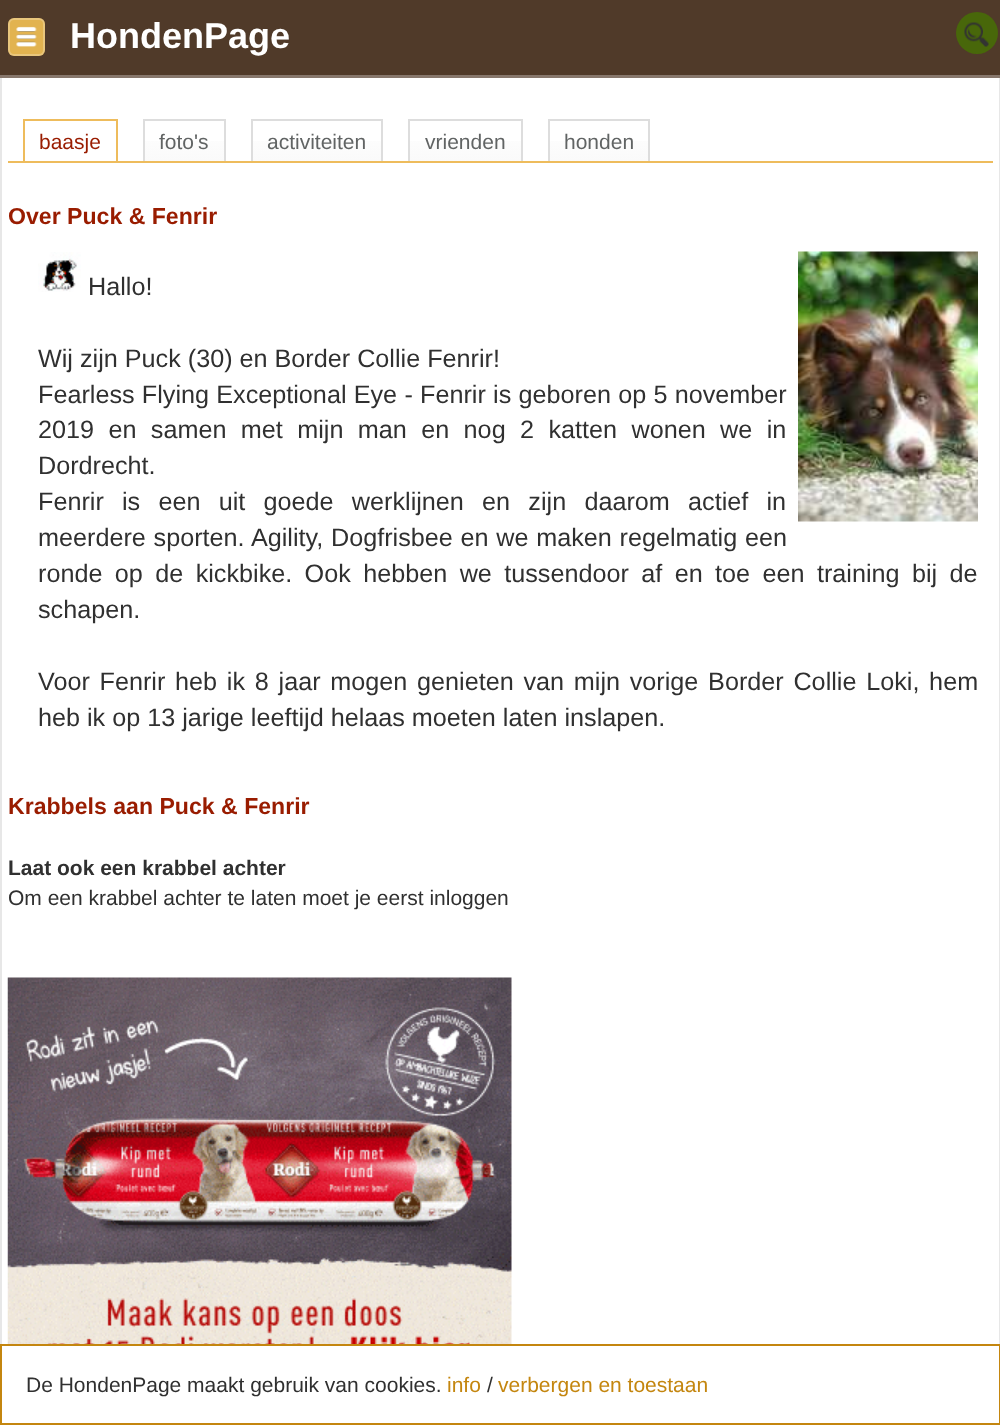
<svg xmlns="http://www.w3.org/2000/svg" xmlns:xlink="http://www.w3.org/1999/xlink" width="1000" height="1425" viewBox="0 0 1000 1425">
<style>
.cls-1{font:bold 36px Liberation Sans;fill:#ffffff}
.cls-2{font:21px Liberation Sans;fill:#991c00}
.cls-3{font:21px Liberation Sans;fill:#616464}
.cls-4{font:bold 23.1px Liberation Sans;fill:#991c00}
.cls-5{font:25.2px Liberation Sans;fill:#303030}
.cls-6{font:bold 21px Liberation Sans;fill:#303030}
.cls-7{font:21px Liberation Sans;fill:#303030}
.cls-8{font:21px Liberation Sans;fill:#c4860f}
</style>
<defs>
<linearGradient id="g1" gradientUnits="userSpaceOnUse" x1="184" y1="120" x2="184" y2="161"><stop offset="0" stop-color="#ffffff"/><stop offset="1" stop-color="#fafafa"/></linearGradient>
<linearGradient id="g2" gradientUnits="userSpaceOnUse" x1="317" y1="120" x2="317" y2="161"><stop offset="0" stop-color="#ffffff"/><stop offset="1" stop-color="#fafafa"/></linearGradient>
<linearGradient id="g3" gradientUnits="userSpaceOnUse" x1="465" y1="120" x2="465" y2="161"><stop offset="0" stop-color="#ffffff"/><stop offset="1" stop-color="#fafafa"/></linearGradient>
<linearGradient id="g4" gradientUnits="userSpaceOnUse" x1="599" y1="120" x2="599" y2="161"><stop offset="0" stop-color="#ffffff"/><stop offset="1" stop-color="#fafafa"/></linearGradient>
</defs>
<rect width="100%" height="100%" fill="#ffffff"/>
<rect fill="none" stroke="#e7e7e7" stroke-width="2" x="1" y="-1" width="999" height="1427"/>
<rect fill="#503a29" x="0" y="0" width="1000" height="75"/>
<rect fill="#87776c" x="0" y="75" width="1000" height="3"/>
<rect fill="#e2b350" x="8" y="18" width="37" height="38" rx="6"/>
<rect fill="none" stroke="#ffffff" stroke-opacity="0.25" stroke-width="2" x="9" y="19" width="35" height="36" rx="5"/>
<image xlink:href="image0.png" x="16" y="26" width="21" height="21"/>
<circle fill="#48670a" cx="977" cy="33" r="21"/>
<image xlink:href="image1.png" x="964" y="22" width="25" height="25"/>
<rect fill="#eebc5c" x="23" y="119" width="94" height="2"/>
<rect fill="#eebc5c" x="116" y="119" width="2" height="42"/>
<rect fill="#eebc5c" x="23" y="119" width="2" height="42"/>
<rect fill="url(#g1)" x="145" y="141" width="79" height="20"/>
<rect fill="#dddddd" x="143" y="119" width="82" height="2"/>
<rect fill="#dddddd" x="224" y="119" width="2" height="42"/>
<rect fill="#dddddd" x="143" y="119" width="2" height="42"/>
<rect fill="url(#g2)" x="253" y="141" width="128" height="20"/>
<rect fill="#dddddd" x="251" y="119" width="132" height="2"/>
<rect fill="#dddddd" x="381" y="119" width="2" height="42"/>
<rect fill="#dddddd" x="251" y="119" width="2" height="42"/>
<rect fill="url(#g3)" x="410" y="141" width="111" height="20"/>
<rect fill="#dddddd" x="408" y="119" width="114" height="2"/>
<rect fill="#dddddd" x="521" y="119" width="2" height="42"/>
<rect fill="#dddddd" x="408" y="119" width="2" height="42"/>
<rect fill="url(#g4)" x="550" y="141" width="98" height="20"/>
<rect fill="#dddddd" x="548" y="119" width="102" height="2"/>
<rect fill="#dddddd" x="648" y="119" width="2" height="42"/>
<rect fill="#dddddd" x="548" y="119" width="2" height="42"/>
<rect fill="#eebc5c" x="8" y="161" width="985" height="2"/>
<image xlink:href="image2.png" x="38" y="252" width="43" height="40"/>
<image xlink:href="image3.png" x="798" y="251" width="180" height="271"/>
<image xlink:href="image4.png" x="7" y="977" width="505" height="367"/>
<rect fill="none" stroke="#c4860f" stroke-width="2" x="1" y="1345" width="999" height="79"/>
<text class="cls-1" x="70" y="48">HondenPage</text>
<text class="cls-2" x="39" y="149">baasje</text>
<text class="cls-3" x="159" y="149">foto's</text>
<text class="cls-3" x="267" y="149">activiteiten</text>
<text class="cls-3" x="425" y="149">vrienden</text>
<text class="cls-3" x="564" y="149">honden</text>
<text class="cls-4" x="8" y="224">Over Puck &amp; Fenrir</text>
<text class="cls-5" x="88" y="295">Hallo!</text>
<text class="cls-5"><tspan x="38" y="367">Wij zijn Puck (30) en Border Collie Fenrir!</tspan><tspan x="38" y="403" word-spacing="0.25">Fearless Flying Exceptional Eye - Fenrir is geboren op 5 november</tspan><tspan x="38" y="438" word-spacing="7.4">2019 en samen met mijn man en nog 2 katten wonen we in</tspan><tspan x="38" y="474">Dordrecht.</tspan><tspan x="38" y="510" word-spacing="11.25">Fenrir is een uit goede werklijnen en zijn daarom actief in</tspan><tspan x="38" y="546" word-spacing="0.75">meerdere sporten. Agility, Dogfrisbee en we maken regelmatig een</tspan><tspan x="38" y="582" word-spacing="5.4">ronde op de kickbike. Ook hebben we tussendoor af en toe een training bij de</tspan><tspan x="38" y="618">schapen.</tspan></text>
<text class="cls-5"><tspan x="38" y="690" word-spacing="2.75">Voor Fenrir heb ik 8 jaar mogen genieten van mijn vorige Border Collie Loki, hem</tspan><tspan x="38" y="726">heb ik op 13 jarige leeftijd helaas moeten laten inslapen.</tspan></text>
<text class="cls-4" x="8" y="814">Krabbels aan Puck &amp; Fenrir</text>
<text class="cls-6" x="8" y="875">Laat ook een krabbel achter</text>
<text class="cls-7" x="8" y="905">Om een krabbel achter te laten moet je eerst inloggen</text>
<text class="cls-7" x="26" y="1392">De HondenPage maakt gebruik van cookies.</text>
<text class="cls-8" x="447" y="1392">info</text>
<text class="cls-7" x="487" y="1392">/</text>
<text class="cls-8" x="498" y="1392">verbergen en toestaan</text>
</svg>
